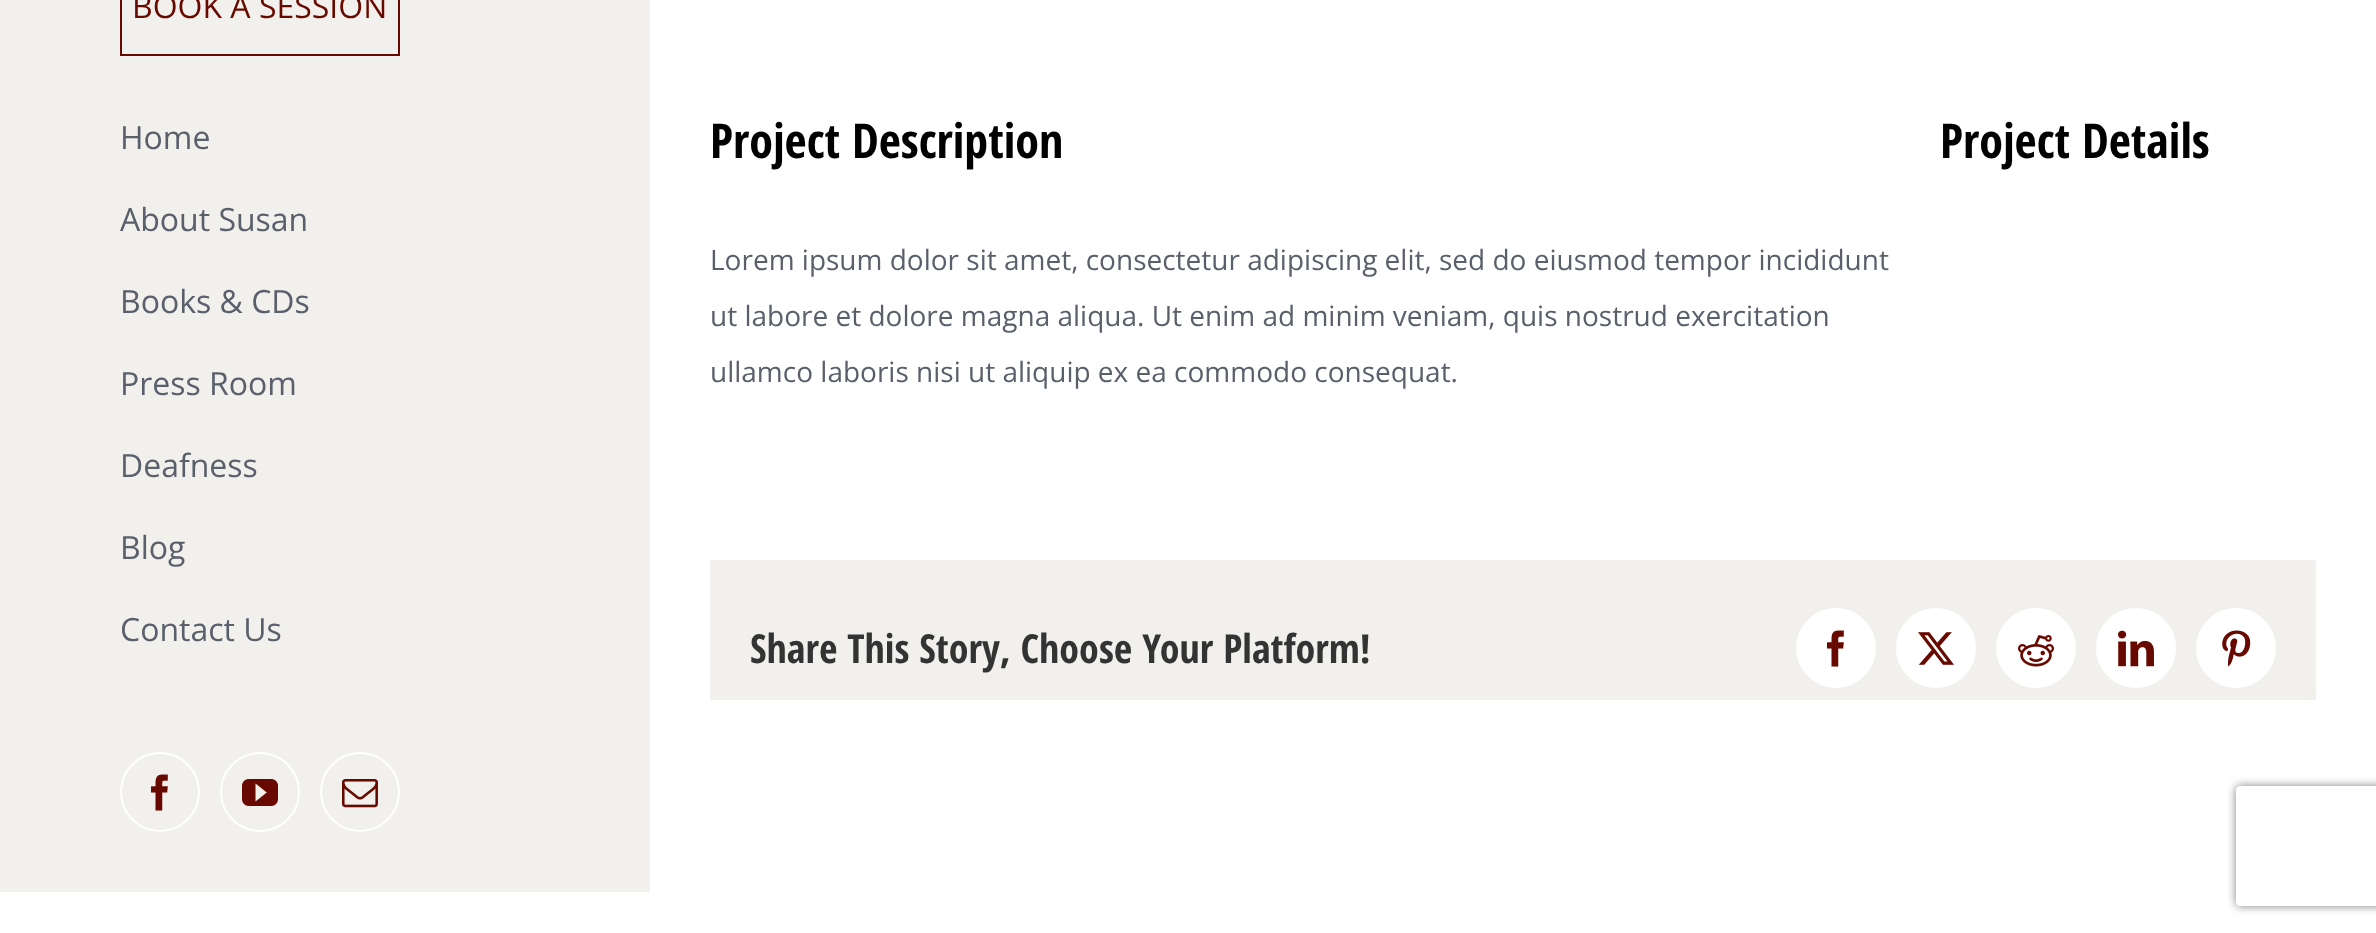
<svg xmlns="http://www.w3.org/2000/svg" xmlns:xlink="http://www.w3.org/1999/xlink" width="2376" height="933" viewBox="0 0 2376 933">
<style>
.cls-1{font:32px Open Sans;fill:#680900}
.cls-2{font:32px Open Sans;fill:#595f6b}
.cls-3{font:bold 48px Open Sans Condensed;fill:#000000}
.cls-4{font:28px Open Sans;fill:#595f6b}
.cls-5{font:bold 40px Open Sans Condensed;fill:#333333}
</style>
<defs>
<clipPath id="clip1"><path d="M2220 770H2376V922H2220ZM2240 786H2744C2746 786 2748 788 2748 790V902C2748 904 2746 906 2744 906H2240C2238 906 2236 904 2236 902V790C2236 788 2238 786 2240 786Z" clip-rule="evenodd"/></clipPath>
</defs>
<rect width="100%" height="100%" fill="#ffffff"/>
<rect fill="#f1f0ec" x="0" y="0" width="650" height="892"/>
<rect fill="none" stroke="#680900" stroke-width="2" x="121" y="-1" width="278" height="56"/>
<circle fill="none" stroke="#ffffff" stroke-width="2" cx="160" cy="792" r="39"/>
<image xlink:href="image0.png" x="151" y="774" width="17" height="37"/>
<circle fill="none" stroke="#ffffff" stroke-width="2" cx="260" cy="792" r="39"/>
<image xlink:href="image1.png" x="242" y="779" width="36" height="27"/>
<circle fill="none" stroke="#ffffff" stroke-width="2" cx="360" cy="792" r="39"/>
<image xlink:href="image2.png" x="342" y="779" width="36" height="29"/>
<rect fill="#f1f0ec" x="710" y="560" width="1606" height="140"/>
<circle fill="#ffffff" stroke="#ffffff" stroke-width="2" cx="1836" cy="648" r="39"/>
<image xlink:href="image3.png" x="1827" y="630" width="17" height="37"/>
<circle fill="#ffffff" stroke="#ffffff" stroke-width="2" cx="1936" cy="648" r="39"/>
<image xlink:href="image4.png" x="1918" y="632" width="36" height="33"/>
<circle fill="#ffffff" stroke="#ffffff" stroke-width="2" cx="2036" cy="648" r="39"/>
<image xlink:href="image5.png" x="2018" y="635" width="36" height="32"/>
<circle fill="#ffffff" stroke="#ffffff" stroke-width="2" cx="2136" cy="648" r="39"/>
<image xlink:href="image6.png" x="2118" y="630" width="36" height="37"/>
<circle fill="#ffffff" stroke="#ffffff" stroke-width="2" cx="2236" cy="648" r="39"/>
<image xlink:href="image7.png" x="2222" y="630" width="29" height="37"/>
<g clip-path="url(#clip1)">
<rect fill="#808080" filter="blur(5px)" x="2236" y="786" width="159" height="120" rx="4"/>
</g>
<text class="cls-1" x="132" y="18">BOOK A SESSION</text>
<text class="cls-2" x="120" y="149">Home</text>
<text class="cls-2" x="120" y="231">About Susan</text>
<text class="cls-2" x="120" y="313">Books &amp; CDs</text>
<text class="cls-2" x="120" y="395">Press Room</text>
<text class="cls-2" x="120" y="477">Deafness</text>
<text class="cls-2" x="120" y="559">Blog</text>
<text class="cls-2" x="120" y="641">Contact Us</text>
<text class="cls-3" x="710" y="158">Project Description</text>
<text class="cls-4" x="710" y="270">Lorem ipsum dolor sit amet, consectetur adipiscing elit, sed do eiusmod tempor incididunt</text>
<text class="cls-4" x="710" y="326">ut labore et dolore magna aliqua. Ut enim ad minim veniam, quis nostrud exercitation</text>
<text class="cls-4" x="710" y="382">ullamco laboris nisi ut aliquip ex ea commodo consequat.</text>
<text class="cls-3" x="1940" y="158">Project Details</text>
<text class="cls-5" x="750" y="663">Share This Story, Choose Your Platform!</text>
</svg>
